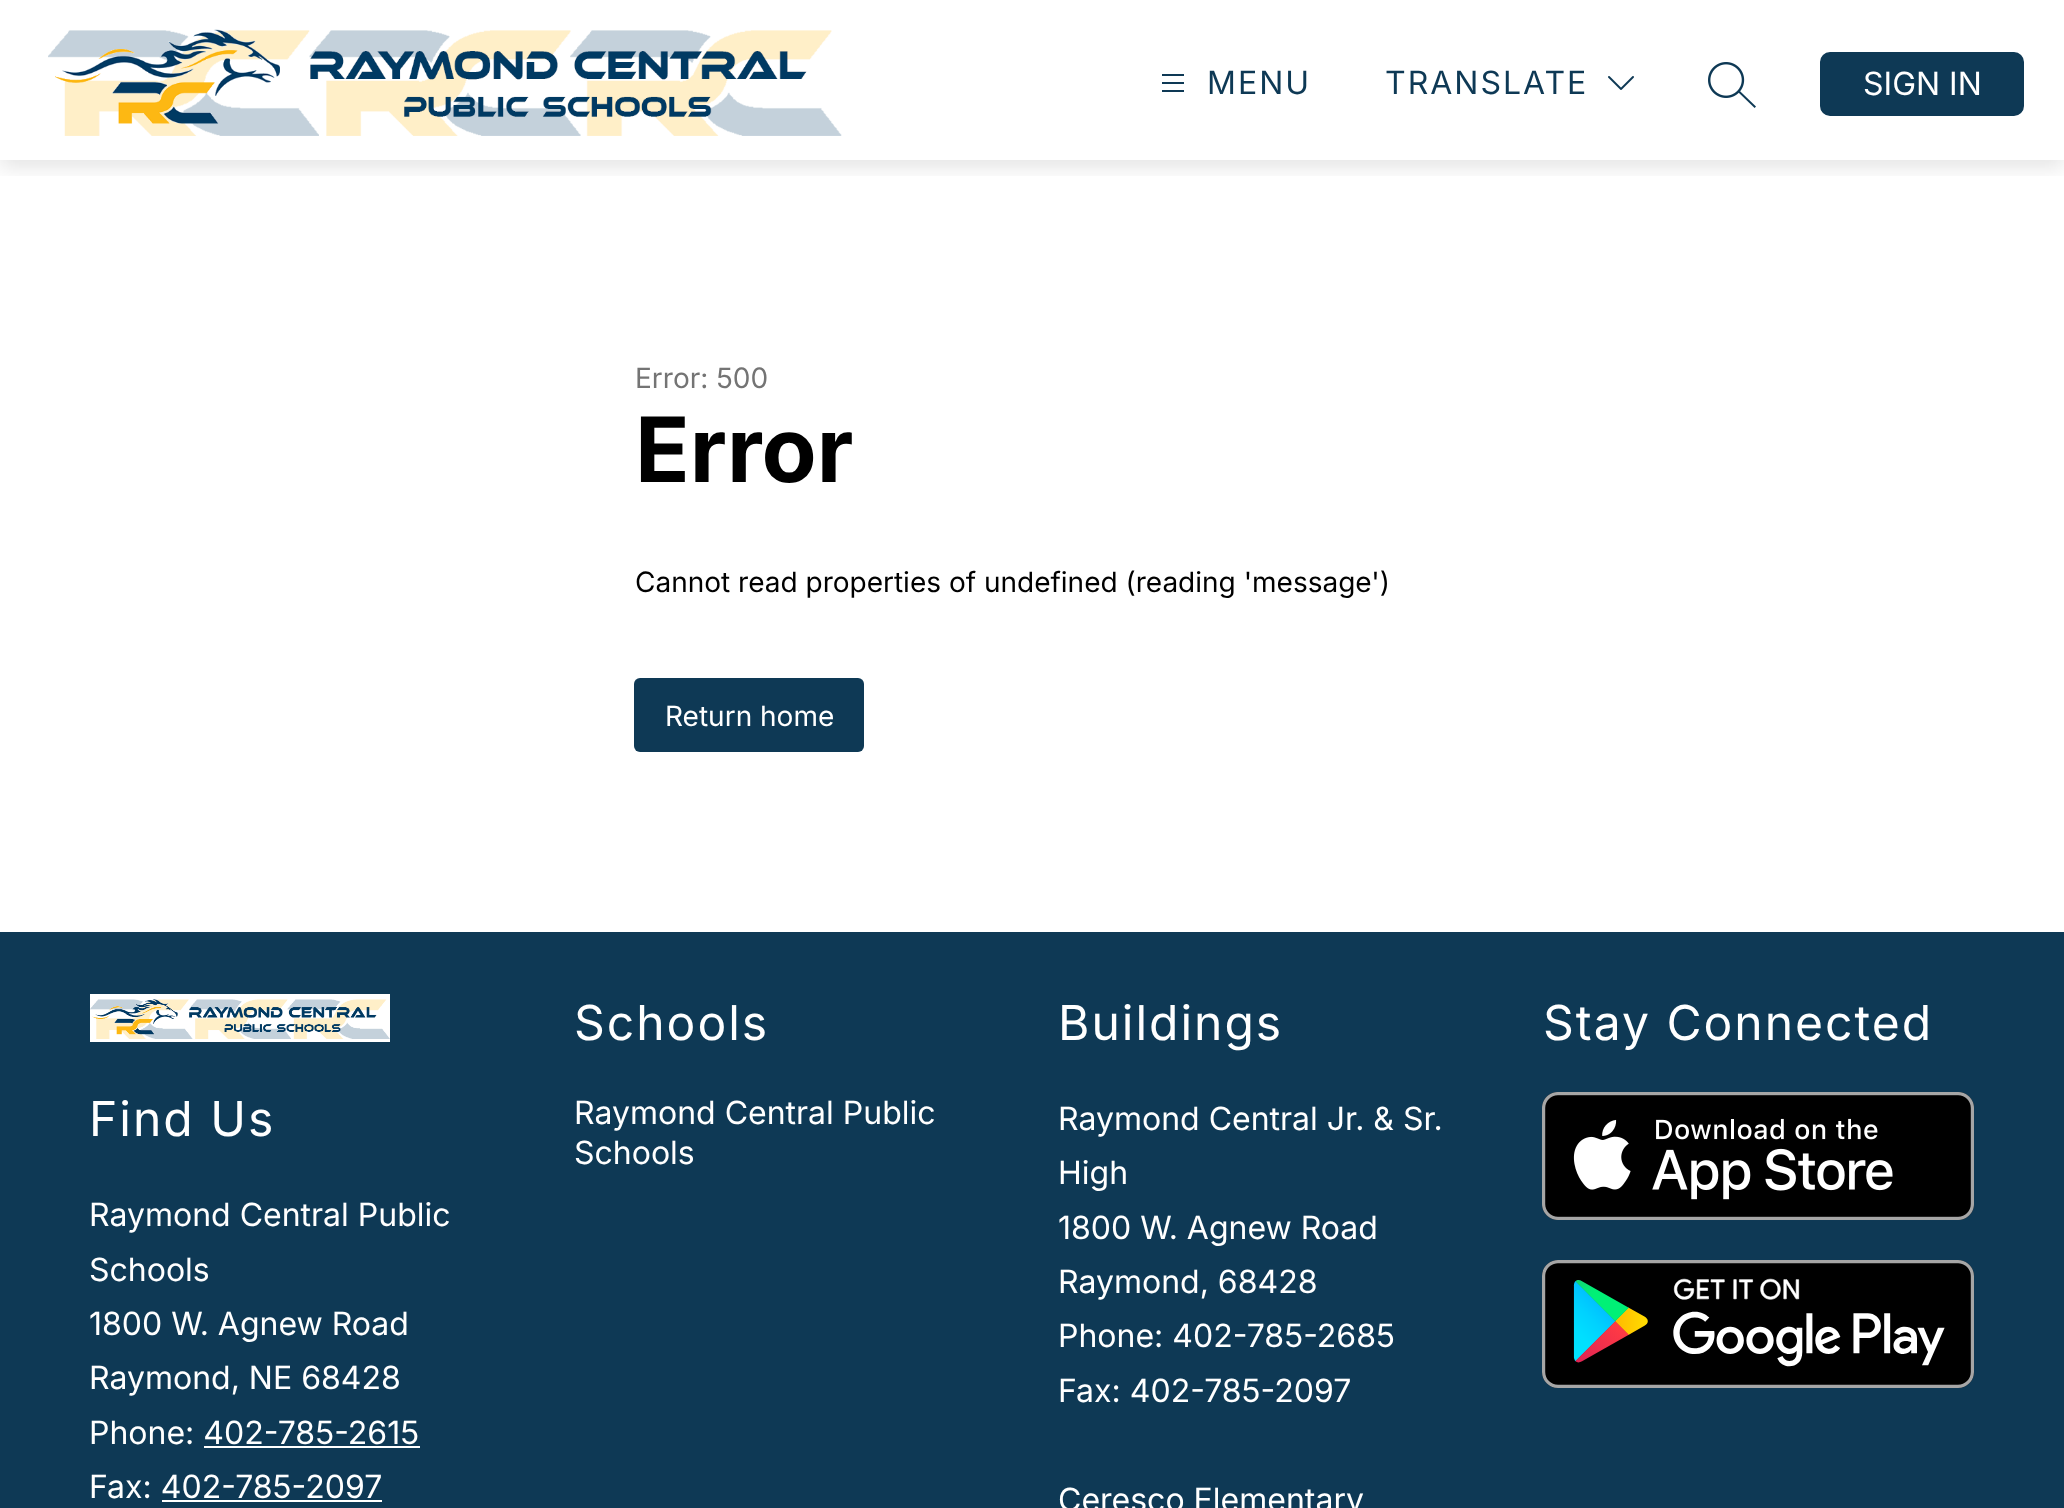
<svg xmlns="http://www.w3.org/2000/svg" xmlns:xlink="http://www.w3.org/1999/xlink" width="2064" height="1508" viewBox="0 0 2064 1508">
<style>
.cls-1{font:32px Inter;letter-spacing:2px;fill:#0e3955}
.cls-2{font:32px Inter;fill:#ffffff}
.cls-3{font:28px Inter;fill:#747474}
.cls-4{font:bold 90px Inter;fill:#000000}
.cls-5{font:28px Inter;fill:#000000}
.cls-6{font:28px Inter;fill:#ffffff}
.cls-7{font:48px Inter;letter-spacing:2px;fill:#ffffff}
</style>
<defs>
<clipPath id="clip1"><rect x="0" y="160" width="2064" height="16"/></clipPath>
</defs>
<rect width="100%" height="100%" fill="#ffffff"/>
<g clip-path="url(#clip1)">
<rect fill="#000000" fill-opacity="0.1" filter="blur(10px)" x="0" y="8" width="2064" height="160"/>
</g>
<image xlink:href="image0.png" x="48" y="29" width="794" height="107"/>
<image xlink:href="image1.png" x="1162" y="74" width="22" height="18"/>
<image xlink:href="image2.png" x="1608" y="76" width="26" height="14"/>
<image xlink:href="image3.png" x="1708" y="62" width="48" height="46"/>
<rect fill="#0e3955" stroke="#0e3955" stroke-width="2" x="1821" y="53" width="202" height="62" rx="9"/>
<rect fill="#0e3955" x="634" y="678" width="230" height="74" rx="6"/>
<rect fill="#0e3955" x="0" y="932" width="2064" height="576"/>
<image xlink:href="image4.png" x="1542" y="1092" width="432" height="128"/>
<image xlink:href="image5.png" x="1542" y="1260" width="432" height="128"/>
<image xlink:href="image6.png" x="90" y="994" width="300" height="48"/>
<rect fill="#ffffff" x="204" y="1446" width="216" height="2"/>
<rect fill="#ffffff" x="162" y="1500" width="220" height="2"/>
<text class="cls-1" x="1207" y="94">MENU</text>
<text class="cls-1" x="1385" y="94">TRANSLATE</text>
<text class="cls-2" x="1863" y="95">SIGN IN</text>
<text class="cls-3" x="635" y="388">Error: 500</text>
<text class="cls-4" x="635" y="482">Error</text>
<text class="cls-5" x="635" y="592">Cannot read properties of undefined (reading 'message')</text>
<text class="cls-6" x="665" y="726">Return home</text>
<text class="cls-7" x="574" y="1040">Schools</text>
<text class="cls-2"><tspan x="574" y="1124">Raymond Central Public</tspan><tspan x="574" y="1164">Schools</tspan></text>
<text class="cls-7" x="1058" y="1040">Buildings</text>
<text class="cls-2"><tspan x="1058" y="1130">Raymond Central Jr. &amp; Sr.</tspan><tspan x="1058" y="1184">High</tspan><tspan x="1058" y="1239">1800 W. Agnew Road</tspan><tspan x="1058" y="1293">Raymond, 68428</tspan><tspan x="1058" y="1347">Phone: 402-785-2685</tspan><tspan x="1058" y="1402">Fax: 402-785-2097</tspan></text>
<text class="cls-2" x="1058" y="1511">Ceresco Elementary</text>
<text class="cls-7" x="1543" y="1040">Stay Connected</text>
<text class="cls-7" x="89" y="1136">Find Us</text>
<text class="cls-2"><tspan x="89" y="1226">Raymond Central Public</tspan><tspan x="89" y="1281">Schools</tspan><tspan x="89" y="1335">1800 W. Agnew Road</tspan><tspan x="89" y="1389">Raymond, NE 68428</tspan><tspan x="89" y="1444">Phone: 402-785-2615</tspan><tspan x="89" y="1498">Fax: 402-785-2097</tspan></text>
</svg>
